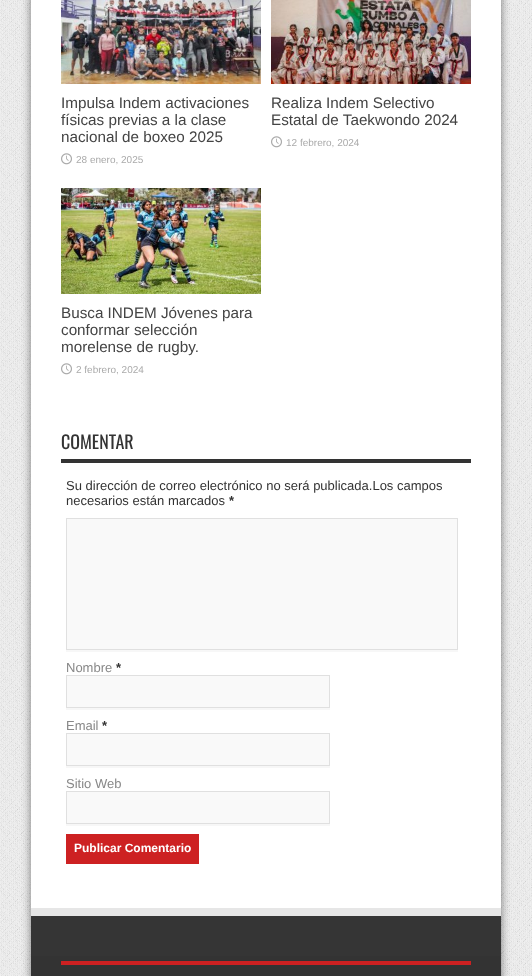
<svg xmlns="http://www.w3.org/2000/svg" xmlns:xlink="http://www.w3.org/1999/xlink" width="532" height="976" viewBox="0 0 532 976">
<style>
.cls-1{font:15.25px Liberation Sans;fill:#444444}
.cls-2{font:10px Liberation Sans;fill:#aaaaaa}
.cls-3{font:18px Oswald;fill:#333333}
.cls-4{font:13px Liberation Sans;fill:#333333}
.cls-5{font:bold 13px Liberation Sans;fill:#333333}
.cls-6{font:13px Liberation Sans;fill:#888888}
.cls-7{font:bold 12px Liberation Sans;fill:#ffffff}
</style>
<rect width="100%" height="100%" fill="#f2f2f2"/>
<image xlink:href="image0.png" x="0" y="0" width="532" height="976"/>
<rect fill="#000000" fill-opacity="0.5" filter="blur(5px)" x="31" y="-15" width="470" height="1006"/>
<rect fill="#ffffff" x="31" y="0" width="470" height="908"/>
<image xlink:href="image1.png" x="61" y="0" width="200" height="84"/>
<image xlink:href="image2.png" x="61" y="153" width="11" height="12"/>
<image xlink:href="image3.png" x="271" y="0" width="200" height="84"/>
<image xlink:href="image2.png" x="271" y="136" width="11" height="12"/>
<image xlink:href="image4.png" x="61" y="188" width="200" height="106"/>
<image xlink:href="image2.png" x="61" y="363" width="11" height="12"/>
<rect fill="#333333" x="61" y="459" width="410" height="4"/>
<rect fill="#f7f7f7" x="66" y="650" width="392" height="2"/>
<rect fill="#f9f9f9" stroke="#e0e0e0" x="66.5" y="518.5" width="391" height="131"/>
<rect fill="#f7f7f7" x="66" y="708" width="264" height="2"/>
<rect fill="#f9f9f9" stroke="#e0e0e0" x="66.5" y="675.5" width="263" height="32"/>
<rect fill="#f7f7f7" x="66" y="766" width="264" height="2"/>
<rect fill="#f9f9f9" stroke="#e0e0e0" x="66.5" y="733.5" width="263" height="32"/>
<rect fill="#f7f7f7" x="66" y="824" width="264" height="2"/>
<rect fill="#f9f9f9" stroke="#e0e0e0" x="66.5" y="791.5" width="263" height="32"/>
<rect fill="#cd2122" x="66" y="834" width="133" height="30"/>
<rect fill="#e6e6e6" x="31" y="908" width="470" height="8"/>
<rect fill="#353535" x="31" y="916" width="470" height="40"/>
<rect fill="#333333" x="31" y="956" width="470" height="20"/>
<rect fill="#cd2122" x="61" y="961" width="410" height="4"/>
<text class="cls-1"><tspan x="61" y="108">Impulsa Indem activaciones</tspan><tspan x="61" y="125">físicas previas a la clase</tspan><tspan x="61" y="142">nacional de boxeo 2025</tspan></text>
<text class="cls-2" x="76" y="163">28 enero, 2025</text>
<text class="cls-1"><tspan x="271" y="108">Realiza Indem Selectivo</tspan><tspan x="271" y="125">Estatal de Taekwondo 2024</tspan></text>
<text class="cls-2" x="286" y="146">12 febrero, 2024</text>
<text class="cls-1"><tspan x="61" y="318">Busca INDEM Jóvenes para</tspan><tspan x="61" y="335">conformar selección</tspan><tspan x="61" y="352">morelense de rugby.</tspan></text>
<text class="cls-2" x="76" y="373">2 febrero, 2024</text>
<text class="cls-3" x="61" y="449">COMENTAR</text>
<text class="cls-4"><tspan x="66" y="490">Su dirección de correo electrónico no será publicada.Los campos</tspan><tspan x="66" y="505">necesarios están marcados</tspan></text>
<text class="cls-5" x="229" y="505">*</text>
<text class="cls-6" x="66" y="672">Nombre</text>
<text class="cls-5" x="116" y="672">*</text>
<text class="cls-6" x="66" y="730">Email</text>
<text class="cls-5" x="102" y="730">*</text>
<text class="cls-6" x="66" y="788">Sitio Web</text>
<text class="cls-7" x="74" y="852">Publicar Comentario</text>
</svg>
